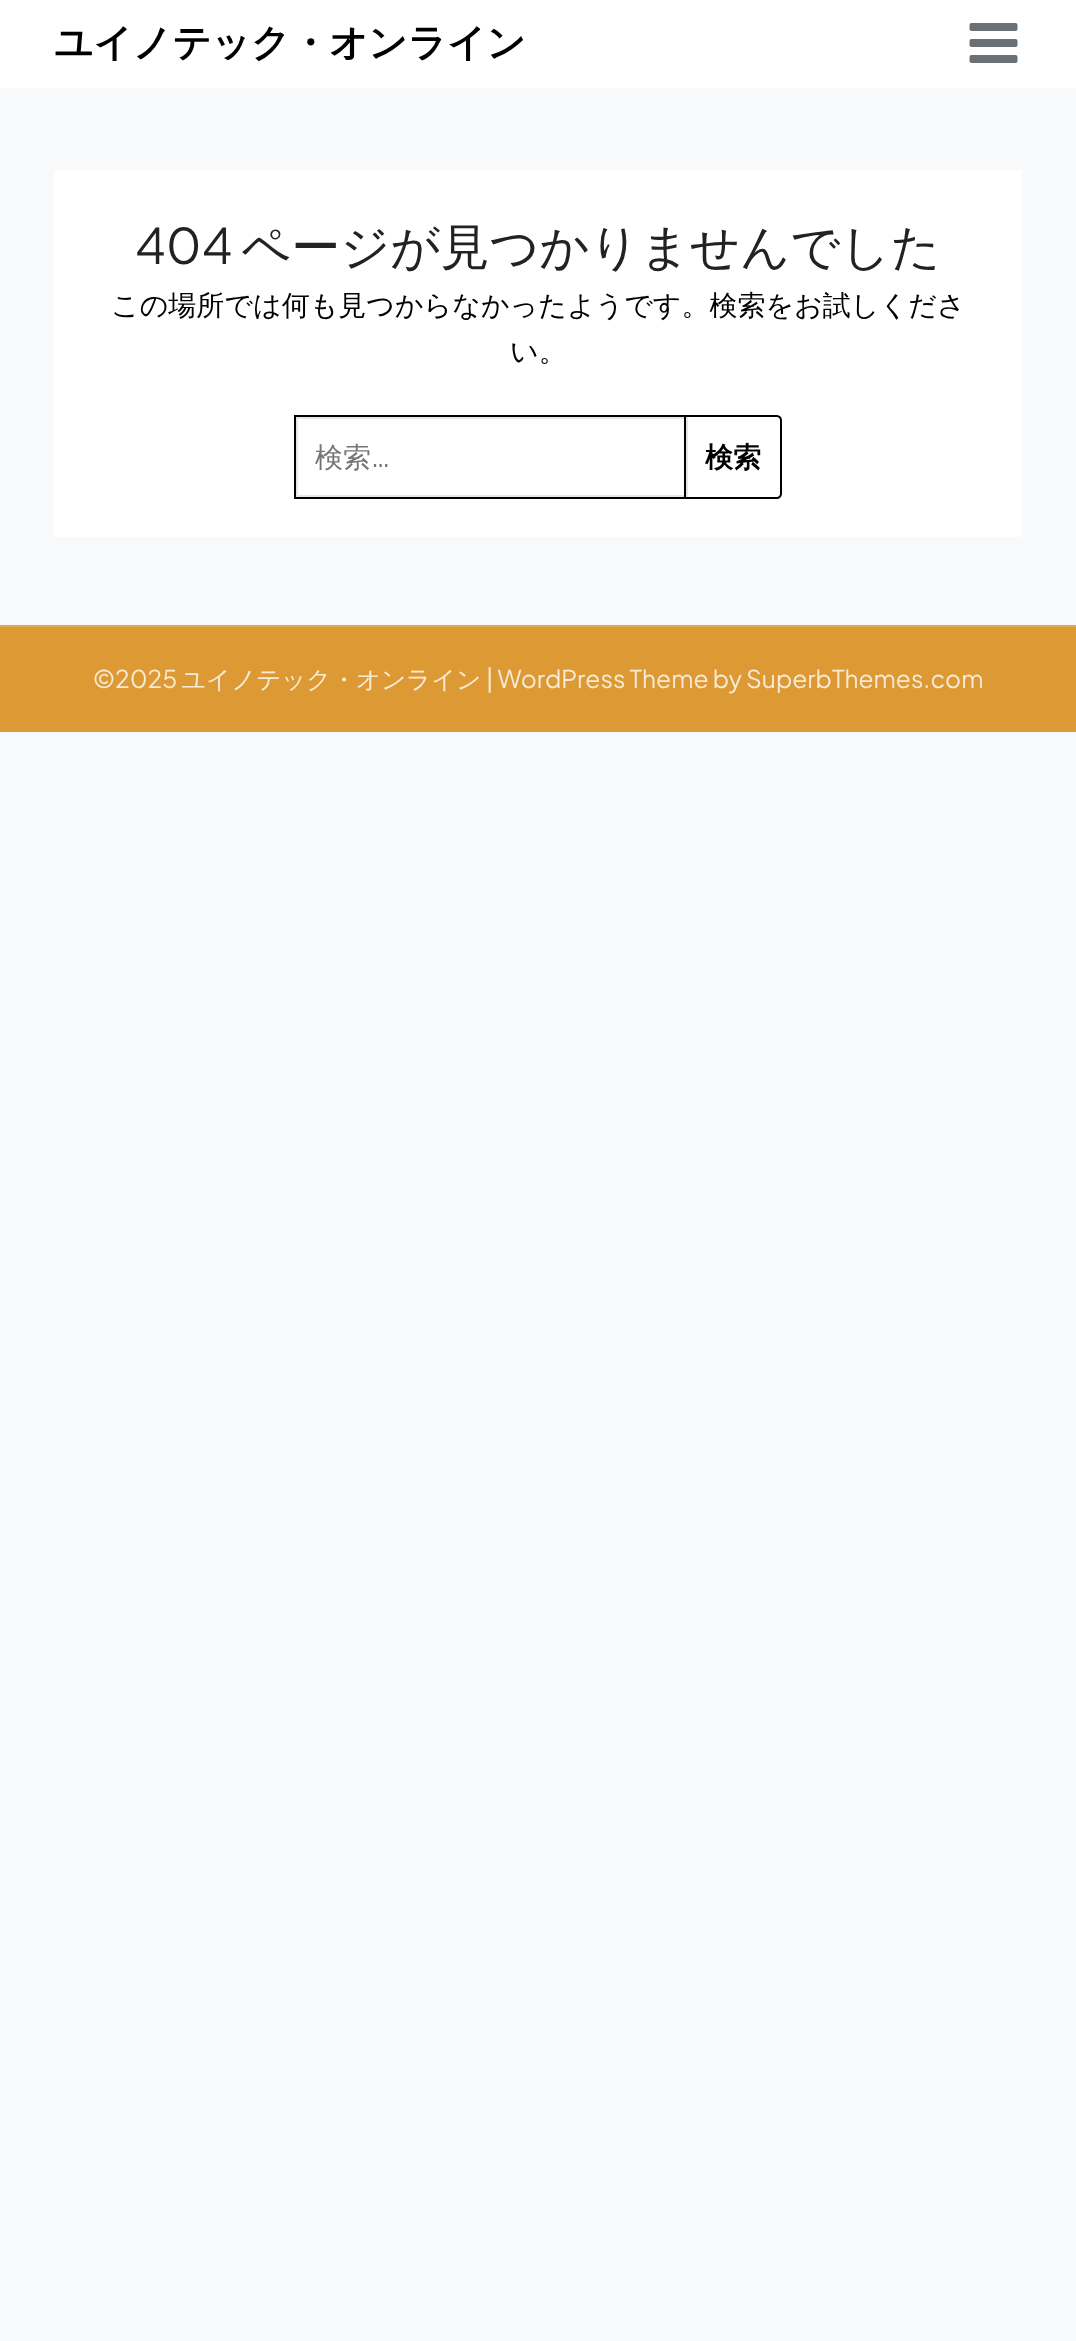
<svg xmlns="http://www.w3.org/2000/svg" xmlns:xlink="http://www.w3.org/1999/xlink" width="1076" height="2341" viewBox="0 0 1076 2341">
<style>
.cls-1{font:bold 38.5px WenQuanYi Zen Hei;fill:#000000}
.cls-2{font:49px Plus Jakarta Sans;fill:#222222}
.cls-3{font:500 49px WenQuanYi Zen Hei;fill:#222222}
.cls-4{font:500 28px WenQuanYi Zen Hei;fill:#000000}
.cls-5{font:500 28px WenQuanYi Zen Hei;fill:#757575}
.cls-6{font:28px Plus Jakarta Sans;fill:#757575}
.cls-7{font:bold 28px WenQuanYi Zen Hei;fill:#000000}
.cls-8{font:24.5px Plus Jakarta Sans;fill:#f8ebd6}
.cls-9{font:500 24.5px WenQuanYi Zen Hei;fill:#f8ebd6}
</style>
<rect width="100%" height="100%" fill="#f8f9fa"/>
<rect fill="#ffffff" x="0" y="0" width="1076" height="88"/>
<image xlink:href="image0.png" x="969" y="23" width="49" height="40"/>
<rect fill="#ffffff" x="54" y="170" width="968" height="367" rx="2"/>
<rect fill="#000000" x="294" y="415" width="394" height="2"/>
<rect fill="#000000" x="294" y="497" width="394" height="2"/>
<rect fill="#000000" x="294" y="415" width="2" height="84"/>
<rect fill="none" stroke="#e5e6e9" stroke-width="2" x="297" y="418" width="390" height="78"/>
<path fill="none" stroke="#000000" stroke-width="2" d="M685 416H777C779 416 781 418 781 420V494C781 496 779 498 777 498H685Z"/>
<rect fill="#dd9933" x="0" y="627" width="1076" height="105"/>
<rect fill="#e2a954" x="0" y="625" width="1076" height="2"/>
<text class="cls-1" x="54" y="56">ユイノテック・オンライン</text>
<text class="cls-2" x="135" y="264">404</text>
<text class="cls-3" x="241" y="264">ページが見つかりませんでした</text>
<text class="cls-4" x="111" y="315">この場所では何も見つからなかったようです。検索をお試しくださ</text>
<text class="cls-4" x="510" y="361">い。</text>
<text class="cls-5" x="315" y="467">検索</text>
<text class="cls-6" x="371" y="467">…</text>
<text class="cls-7" x="705" y="467">検索</text>
<text class="cls-8" x="93" y="688">©2025</text>
<text class="cls-9" x="181" y="688">ユイノテック・オンライン</text>
<text class="cls-8" x="486" y="688">| WordPress Theme by SuperbThemes.com</text>
</svg>
